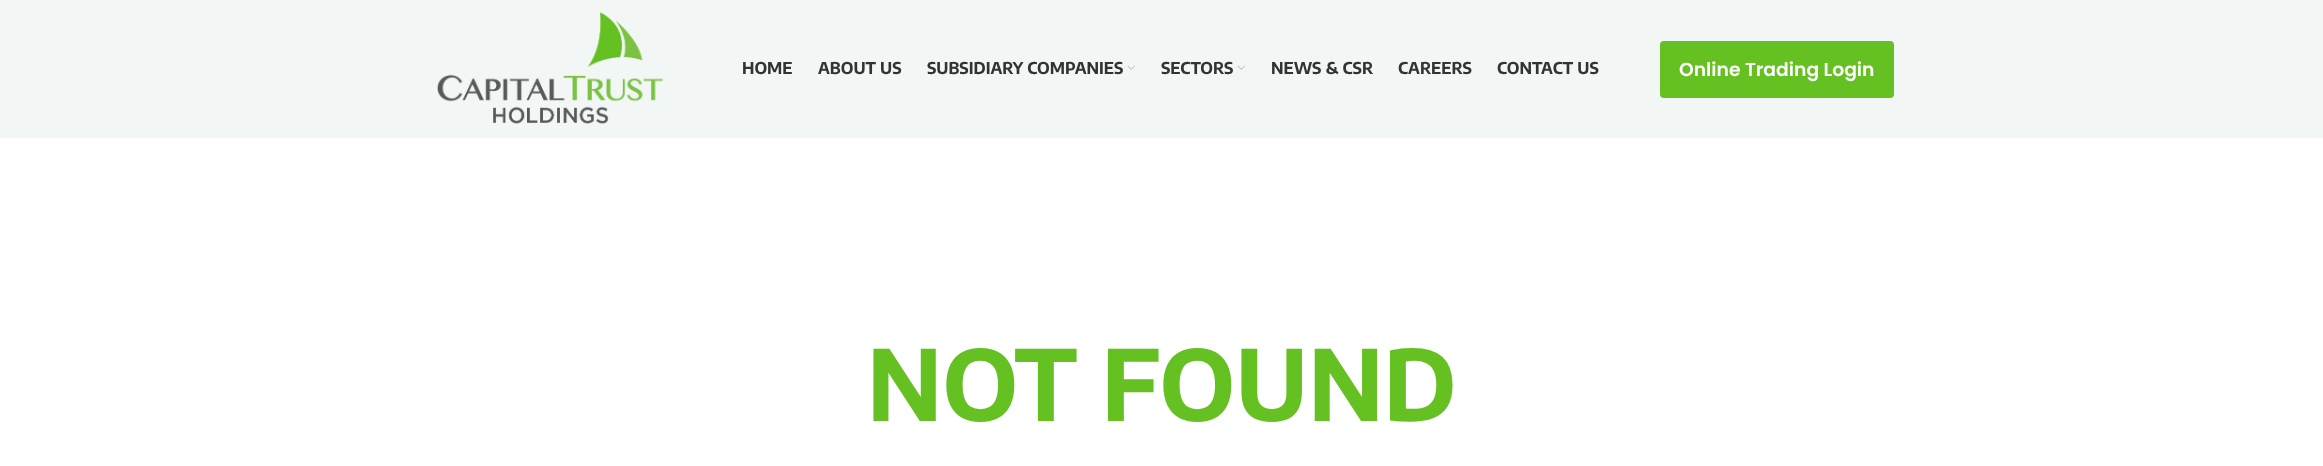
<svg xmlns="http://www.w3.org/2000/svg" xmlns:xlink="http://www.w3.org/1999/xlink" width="2323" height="466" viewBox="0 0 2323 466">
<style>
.cls-1{font:bold 16.25px Encode Sans Condensed;fill:#333333}
.cls-2{font:600 18.75px Poppins;fill:#ffffff}
.cls-3{font:bold 97.5px Encode Sans Condensed;fill:#65c021}
</style>
<rect width="100%" height="100%" fill="#ffffff"/>
<rect fill="#f2f7f6" x="0" y="0" width="2323" height="138"/>
<image xlink:href="image0.png" x="437" y="12" width="227" height="112"/>
<image xlink:href="image1.png" x="1127" y="65" width="8" height="5"/>
<image xlink:href="image1.png" x="1237" y="65" width="8" height="5"/>
<rect fill="#65c021" x="1660" y="41" width="234" height="57" rx="4"/>
<text class="cls-1" x="742" y="74">HOME</text>
<text class="cls-1" x="818" y="74">ABOUT US</text>
<text class="cls-1" x="927" y="74">SUBSIDIARY COMPANIES</text>
<text class="cls-1" x="1161" y="74">SECTORS</text>
<text class="cls-1" x="1271" y="74">NEWS &amp; CSR</text>
<text class="cls-1" x="1398" y="74">CAREERS</text>
<text class="cls-1" x="1497" y="74">CONTACT US</text>
<text class="cls-2" x="1679" y="76">Online Trading Login</text>
<text class="cls-3" x="867" y="421">NOT FOUND</text>
</svg>
